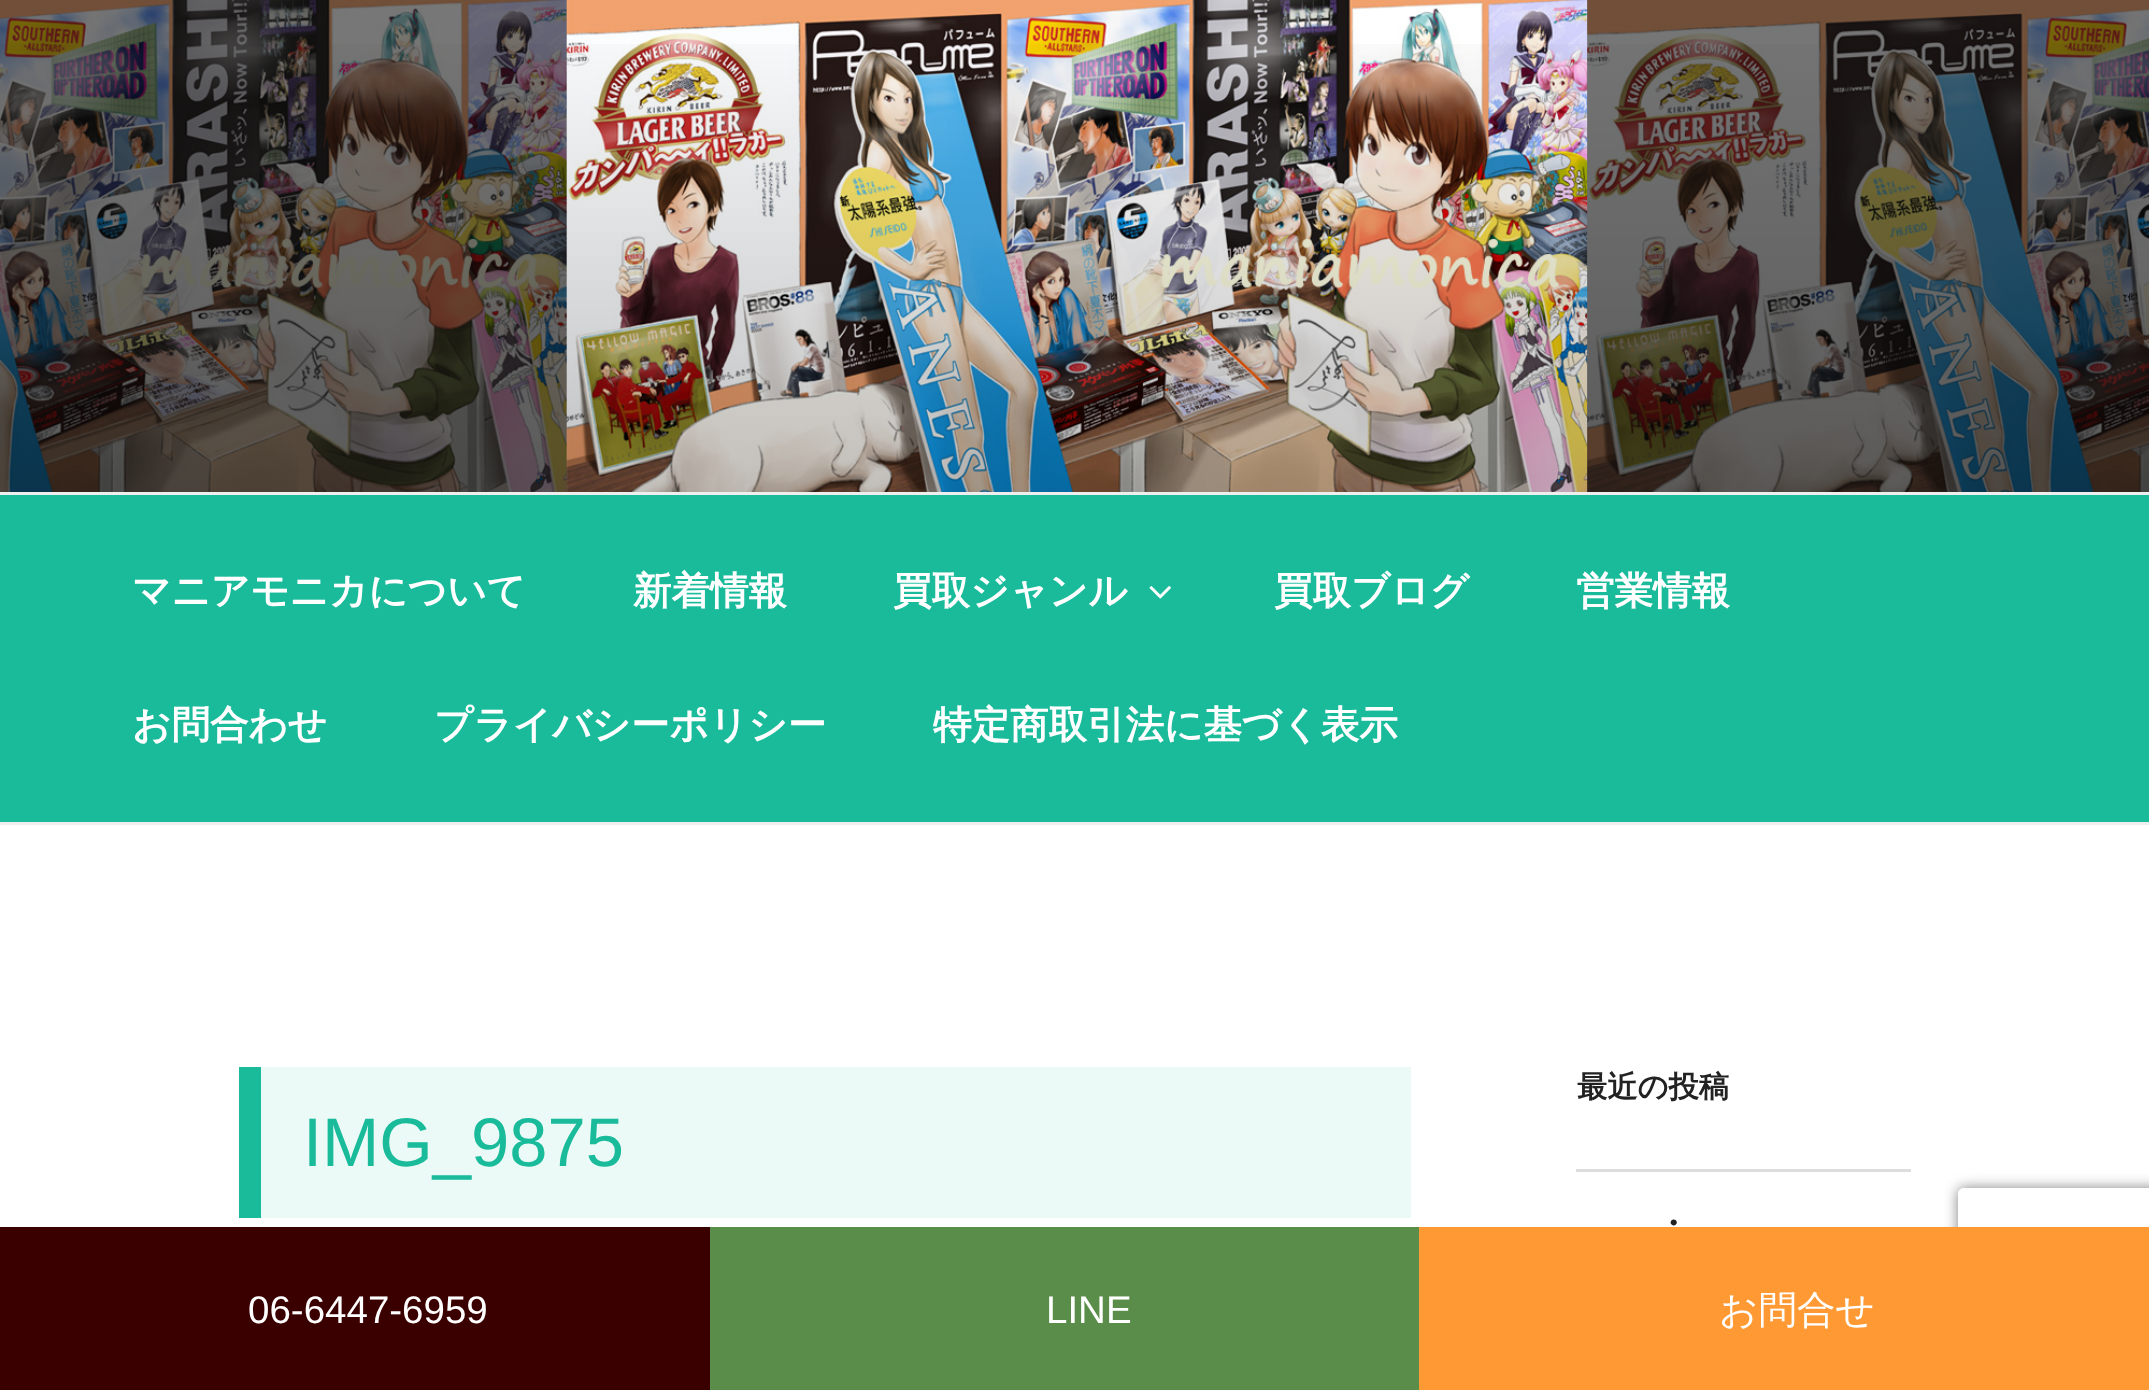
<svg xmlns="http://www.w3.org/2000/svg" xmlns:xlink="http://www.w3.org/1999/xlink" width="2149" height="1390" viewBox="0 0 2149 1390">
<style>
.cls-1{font:bold 38.5px WenQuanYi Zen Hei;fill:#ffffff}
.cls-2{font:68.75px Liberation Sans;fill:#19bb9b}
.cls-3{font:bold 30.25px WenQuanYi Zen Hei;fill:#222222}
.cls-4{font:500 38.5px WenQuanYi Zen Hei;fill:#222222}
.cls-5{font:38.5px Liberation Sans;fill:#ffffff}
.cls-6{font:500 38.5px WenQuanYi Zen Hei;fill:#ffffff}
</style>
<defs>
<linearGradient id="g1" gradientUnits="userSpaceOnUse" x1="1075" y1="0" x2="1075" y2="825"><stop offset="0" stop-color="#000000" stop-opacity="0"/><stop offset="0.75" stop-color="#000000" stop-opacity="0.3"/><stop offset="1" stop-color="#000000" stop-opacity="0.3"/></linearGradient>
<clipPath id="clip1"><path d="M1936 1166H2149V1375H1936ZM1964 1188H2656C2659.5 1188 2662 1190.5 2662 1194V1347C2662 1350.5 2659.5 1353 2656 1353H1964C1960.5 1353 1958 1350.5 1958 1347V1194C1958 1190.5 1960.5 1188 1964 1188Z" clip-rule="evenodd"/></clipPath>
</defs>
<rect width="100%" height="100%" fill="#ffffff"/>
<image xlink:href="image0.png" x="0" y="0" width="2149" height="492"/>
<rect fill="url(#g1)" x="0" y="44" width="2149" height="448"/>
<rect fill="#19bb9b" x="0" y="495" width="2149" height="327"/>
<rect fill="#eeeeee" x="0" y="492" width="2149" height="3"/>
<rect fill="#eeeeee" x="0" y="822" width="2149" height="3"/>
<image xlink:href="image1.png" x="1149" y="586" width="22" height="13"/>
<rect fill="#ecfaf7" x="261" y="1067" width="1150" height="151"/>
<rect fill="#19bb9b" x="239" y="1067" width="22" height="151"/>
<rect fill="#dddddd" x="1576" y="1169" width="335" height="3"/>
<rect fill="#3a0000" x="0" y="1227" width="710" height="163"/>
<rect fill="#5a8d49" x="710" y="1227" width="709" height="163"/>
<g clip-path="url(#clip1)">
<rect fill="#808080" filter="blur(7px)" x="1958" y="1188" width="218" height="165" rx="6"/>
</g>
<rect fill="#ff9933" x="1419" y="1227" width="730" height="163"/>
<text class="cls-1" x="132" y="604">マニアモニカについて</text>
<text class="cls-1" x="633" y="604">新着情報</text>
<text class="cls-1" x="893" y="604">買取ジャンル</text>
<text class="cls-1" x="1274" y="604">買取ブログ</text>
<text class="cls-1" x="1576" y="604">営業情報</text>
<text class="cls-1" x="132" y="738">お問合わせ</text>
<text class="cls-1" x="434" y="738">プライバシーポリシー</text>
<text class="cls-1" x="933" y="738">特定商取引法に基づく表示</text>
<text class="cls-2" x="303" y="1166">IMG_9875</text>
<text class="cls-3" x="1577" y="1097">最近の投稿</text>
<text class="cls-4" x="1654" y="1236">・</text>
<text class="cls-5" x="248" y="1323">06-6447-6959</text>
<text class="cls-5" x="1046" y="1323">LINE</text>
<text class="cls-6" x="1719" y="1323">お問合せ</text>
</svg>
